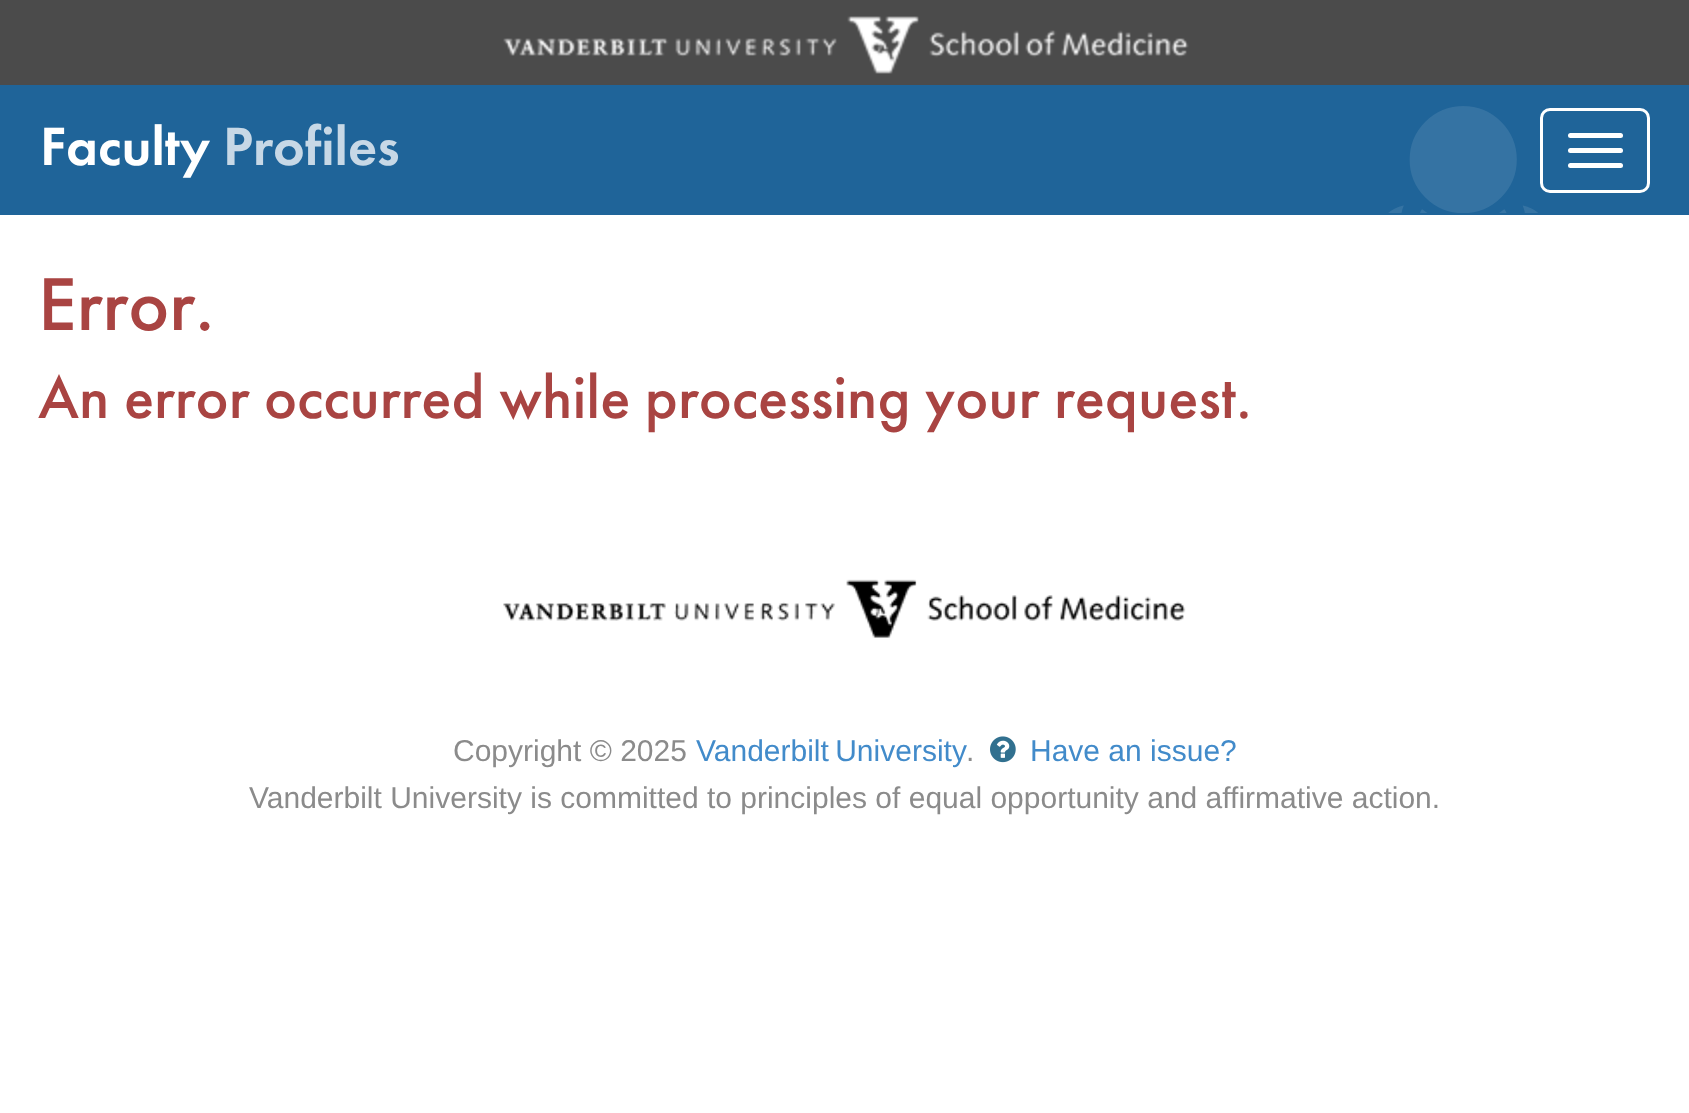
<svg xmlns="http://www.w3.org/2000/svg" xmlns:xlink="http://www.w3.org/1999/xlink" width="1689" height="1113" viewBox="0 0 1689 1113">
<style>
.cls-1{font:600 56px Futura PT;fill:#ffffff}
.cls-2{font:600 56px Futura PT;fill:#c7d8e6}
.cls-3{font:500 77.5px Futura PT;fill:#a94442}
.cls-4{font:500 62.5px Futura PT;fill:#a94442}
.cls-5{font:30px Liberation Sans;fill:#8b8b8b}
.cls-6{font:30px Liberation Sans;fill:#428bca}
</style>
<rect width="100%" height="100%" fill="#ffffff"/>
<rect fill="#4b4b4b" x="0" y="0" width="1689" height="85"/>
<image xlink:href="image0.png" x="503" y="16" width="686" height="58"/>
<rect fill="#1f6499" x="0" y="85" width="1689" height="130"/>
<rect fill="none" stroke="#ffffff" stroke-width="3" x="1541.5" y="109.5" width="107" height="82" rx="8.5"/>
<rect fill="#ffffff" x="1568" y="133" width="55" height="5" rx="2.5"/>
<rect fill="#ffffff" x="1568" y="148" width="55" height="5" rx="2.5"/>
<rect fill="#ffffff" x="1568" y="163" width="55" height="5" rx="2.5"/>
<image xlink:href="image1.png" x="1388" y="106" width="150" height="107"/>
<image xlink:href="image2.png" x="503" y="579" width="683" height="59"/>
<image xlink:href="image3.png" x="990" y="736" width="26" height="27"/>
<text class="cls-1" x="40" y="165">Faculty</text>
<text class="cls-2" x="223" y="165">Profiles</text>
<text class="cls-3" x="38" y="330">Error.</text>
<text class="cls-4" x="38" y="418">An error occurred while processing your request.</text>
<text class="cls-5" x="453" y="761">Copyright © 2025</text>
<text class="cls-6" x="696" y="761" word-spacing="-2">Vanderbilt University</text>
<text class="cls-5" x="966" y="761">.</text>
<text class="cls-6" x="1030" y="761">Have an issue?</text>
<text class="cls-5" x="249" y="808">Vanderbilt University is committed to principles of equal opportunity and affirmative action.</text>
</svg>
